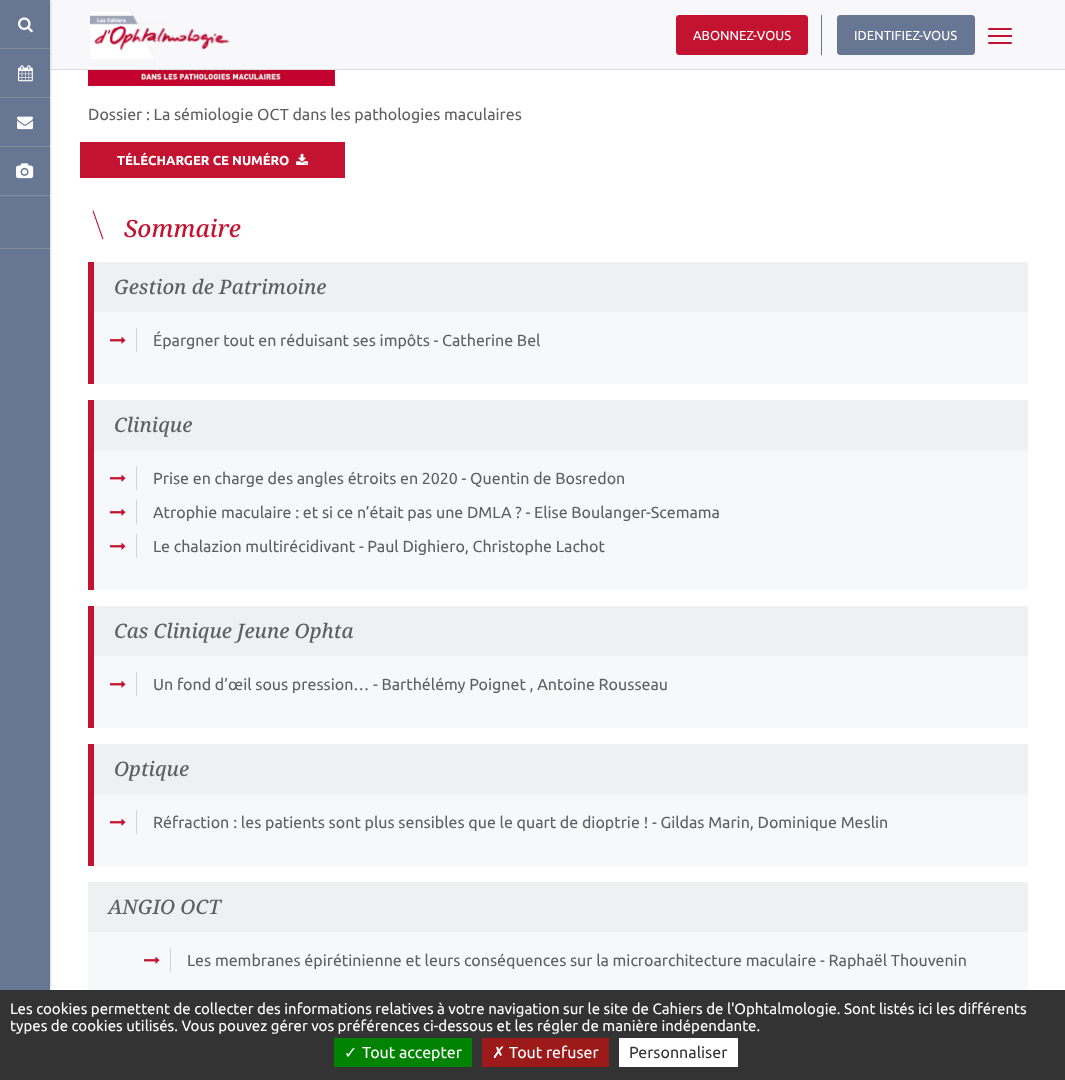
<svg xmlns="http://www.w3.org/2000/svg" xmlns:xlink="http://www.w3.org/1999/xlink" width="1065" height="1080" viewBox="0 0 1065 1080">
<style>
.cls-1{font:13px Ubuntu;fill:#ffffff}
.cls-2{font:16px Ubuntu;fill:#5f5f5f}
.cls-3{font:bold 13px Ubuntu;fill:#ffffff}
.cls-4{font:italic 500 24px Noto Serif;fill:#c41330}
.cls-5{font:italic 500 20px Noto Serif;fill:#5f5f5f}
.cls-6{font:15px Ubuntu;fill:#ffffff}
.cls-7{font:16px DejaVu Sans;fill:#ffffff}
.cls-8{font:16px Ubuntu;fill:#ffffff}
.cls-9{font:16px Ubuntu;fill:#333333}
</style>
<rect width="100%" height="100%" fill="#ffffff"/>
<rect fill="#f8f8fa" x="50" y="0" width="1015" height="69"/>
<rect fill="#dddddd" x="50" y="69" width="1015" height="1"/>
<rect fill="#000000" fill-opacity="0.25" filter="blur(1.5px)" x="0" y="1" width="50" height="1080"/>
<rect fill="#677693" x="0" y="0" width="50" height="990"/>
<rect fill="#848d9a" x="0" y="48" width="50" height="1"/>
<image xlink:href="image0.png" x="18" y="17" width="15" height="16"/>
<rect fill="#848d9a" x="0" y="97" width="50" height="1"/>
<image xlink:href="image1.png" x="18" y="65" width="15" height="17"/>
<rect fill="#848d9a" x="0" y="146" width="50" height="1"/>
<image xlink:href="image2.png" x="17" y="116" width="16" height="14"/>
<rect fill="#848d9a" x="0" y="195" width="50" height="1"/>
<image xlink:href="image3.png" x="16" y="163" width="18" height="16"/>
<rect fill="#848d9a" x="0" y="248" width="50" height="1"/>
<image xlink:href="image4.png" x="90" y="11" width="140" height="48"/>
<rect fill="#c41330" stroke="#c41330" x="676.5" y="15.5" width="131" height="39" rx="2.5"/>
<rect fill="#677693" x="821" y="15" width="1" height="40"/>
<rect fill="#677693" stroke="#677693" x="837.5" y="15.5" width="137" height="39" rx="2.5"/>
<rect fill="#c41330" x="988" y="35" width="24" height="2"/>
<rect fill="#c41330" x="988" y="28" width="24" height="2" rx="1"/>
<rect fill="#c41330" x="988" y="42" width="24" height="2" rx="1"/>
<image xlink:href="image5.png" x="88" y="70" width="247" height="16"/>
<rect fill="#c41330" x="80" y="142" width="265" height="36"/>
<image xlink:href="image6.png" x="296" y="153" width="13" height="12"/>
<path fill="#c41330" d="M92.5 211L93.5 210.5L103.5 239L102.5 239.5Z"/>
<rect fill="#c41330" x="88" y="262" width="6" height="122"/>
<rect fill="#eff0f2" x="94" y="262" width="934" height="50"/>
<rect fill="#f7f8fa" x="94" y="312" width="934" height="72"/>
<rect fill="#d2d2d2" x="136" y="328" width="1" height="24"/>
<image xlink:href="image7.png" x="110" y="336" width="16" height="8"/>
<rect fill="#c41330" x="88" y="400" width="6" height="190"/>
<rect fill="#eff0f2" x="94" y="400" width="934" height="50"/>
<rect fill="#f7f8fa" x="94" y="450" width="934" height="140"/>
<rect fill="#d2d2d2" x="136" y="466" width="1" height="24"/>
<image xlink:href="image7.png" x="110" y="474" width="16" height="8"/>
<rect fill="#d2d2d2" x="136" y="500" width="1" height="24"/>
<image xlink:href="image7.png" x="110" y="508" width="16" height="8"/>
<rect fill="#d2d2d2" x="136" y="534" width="1" height="24"/>
<image xlink:href="image7.png" x="110" y="542" width="16" height="8"/>
<rect fill="#c41330" x="88" y="606" width="6" height="122"/>
<rect fill="#eff0f2" x="94" y="606" width="934" height="50"/>
<rect fill="#f7f8fa" x="94" y="656" width="934" height="72"/>
<rect fill="#d2d2d2" x="136" y="672" width="1" height="24"/>
<image xlink:href="image7.png" x="110" y="680" width="16" height="8"/>
<rect fill="#c41330" x="88" y="744" width="6" height="122"/>
<rect fill="#eff0f2" x="94" y="744" width="934" height="50"/>
<rect fill="#f7f8fa" x="94" y="794" width="934" height="72"/>
<rect fill="#d2d2d2" x="136" y="810" width="1" height="24"/>
<image xlink:href="image7.png" x="110" y="818" width="16" height="8"/>
<rect fill="#eff0f2" x="88" y="882" width="940" height="50"/>
<rect fill="#f7f8fa" x="88" y="932" width="940" height="58"/>
<rect fill="#d2d2d2" x="170" y="948" width="1" height="24"/>
<image xlink:href="image7.png" x="144" y="956" width="16" height="8"/>
<rect fill="#333333" x="0" y="990" width="1065" height="90"/>
<rect fill="#008300" x="334" y="1038" width="138" height="29"/>
<rect fill="#9c1a1a" x="482" y="1038" width="127" height="29"/>
<rect fill="#ffffff" x="619" y="1038" width="119" height="29"/>
<text class="cls-1" x="693" y="40">ABONNEZ-VOUS</text>
<text class="cls-1" x="854" y="40">IDENTIFIEZ-VOUS</text>
<text class="cls-2" x="88" y="120">Dossier : La sémiologie OCT dans les pathologies maculaires</text>
<text class="cls-3" x="117" y="165">TÉLÉCHARGER CE NUMÉRO</text>
<text class="cls-4" x="124" y="237">Sommaire</text>
<text class="cls-5" x="114" y="294">Gestion de Patrimoine</text>
<text class="cls-2" x="153" y="346">Épargner tout en réduisant ses impôts - Catherine Bel</text>
<text class="cls-5" x="114" y="432">Clinique</text>
<text class="cls-2" x="153" y="484">Prise en charge des angles étroits en 2020 - Quentin de Bosredon</text>
<text class="cls-2" x="153" y="518">Atrophie maculaire : et si ce n’était pas une DMLA ? - Elise Boulanger-Scemama</text>
<text class="cls-2" x="153" y="552">Le chalazion multirécidivant - Paul Dighiero, Christophe Lachot</text>
<text class="cls-5" x="114" y="638">Cas Clinique Jeune Ophta</text>
<text class="cls-2" x="153" y="690">Un fond d’œil sous pression… - Barthélémy Poignet , Antoine Rousseau</text>
<text class="cls-5" x="114" y="776">Optique</text>
<text class="cls-2" x="153" y="828">Réfraction : les patients sont plus sensibles que le quart de dioptrie ! - Gildas Marin, Dominique Meslin</text>
<text class="cls-5" x="108" y="914">ANGIO OCT</text>
<text class="cls-2" x="187" y="966">Les membranes épirétinienne et leurs conséquences sur la microarchitecture maculaire - Raphaël Thouvenin</text>
<text class="cls-6"><tspan x="10" y="1014">Les cookies permettent de collecter des informations relatives à votre navigation sur le site de Cahiers de l'Ophtalmologie. Sont listés ici les différents</tspan><tspan x="10" y="1031">types de cookies utilisés. Vous pouvez gérer vos préférences ci-dessous et les régler de manière indépendante.</tspan></text>
<text class="cls-7" x="344" y="1058">✓</text>
<text class="cls-8" x="362" y="1058">Tout accepter</text>
<text class="cls-7" x="492" y="1058">✗</text>
<text class="cls-8" x="509" y="1058">Tout refuser</text>
<text class="cls-9" x="629" y="1058">Personnaliser</text>
</svg>
